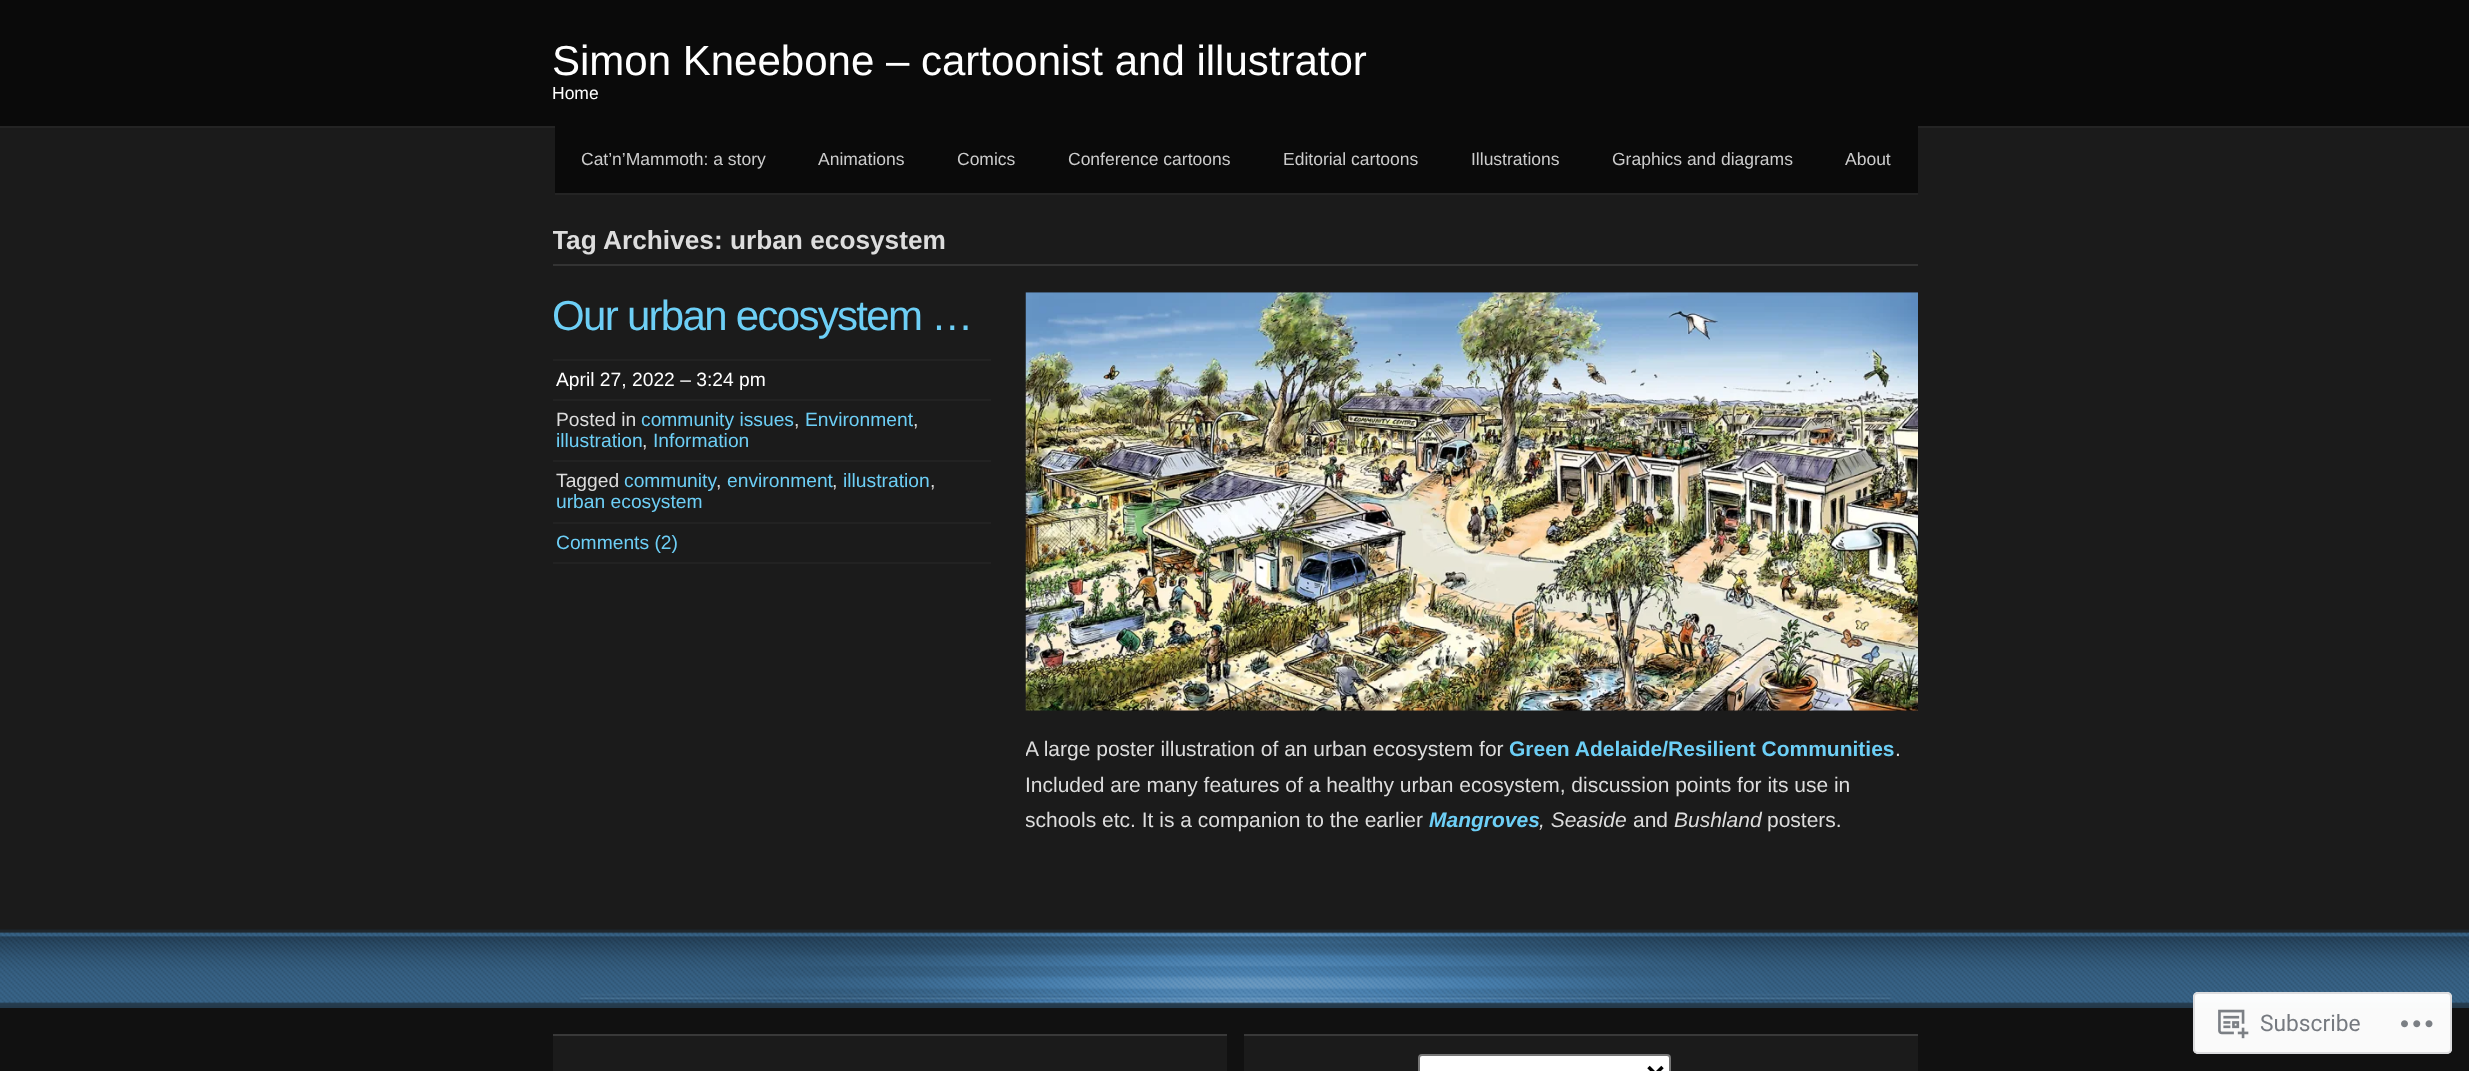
<svg xmlns="http://www.w3.org/2000/svg" xmlns:xlink="http://www.w3.org/1999/xlink" width="2469" height="1071" viewBox="0 0 2469 1071">
<style>
.cls-1{font:42px Liberation Sans;fill:#ffffff}
.cls-2{font:17.5px Liberation Sans;fill:#ffffff}
.cls-3{font:17.5px Liberation Sans;fill:#cccccc}
.cls-4{font:bold 26.25px Liberation Sans;fill:#dddddd}
.cls-5{font:42px Liberation Sans;letter-spacing:-1.7px;fill:#6dcff6}
.cls-6{font:19.25px Liberation Sans;fill:#ffffff}
.cls-7{font:19.25px Liberation Sans;fill:#dddddd}
.cls-8{font:19.25px Liberation Sans;fill:#6dcff6}
.cls-9{font:21px Liberation Sans;fill:#dddddd}
.cls-10{font:bold 21px Liberation Sans;fill:#6dcff6}
.cls-11{font:italic bold 21px Liberation Sans;fill:#6dcff6}
.cls-12{font:italic 21px Liberation Sans;fill:#dddddd}
.cls-13{font:22.75px Roboto;fill:#767a80}
</style>
<defs>
<clipPath id="clip1"><rect x="553" y="224" width="1365" height="679"/></clipPath>
<clipPath id="clip2"><rect x="1026" y="292" width="892" height="567"/></clipPath>
</defs>
<rect width="100%" height="100%" fill="#1b1b1b"/>
<rect fill="#0a0a0a" x="0" y="0" width="2469" height="126"/>
<rect fill="#242424" x="0" y="126" width="2469" height="2"/>
<rect fill="#0a0a0a" x="555" y="126" width="1363" height="67"/>
<rect fill="#242424" x="555" y="193" width="1363" height="2"/>
<rect fill="#333333" x="553" y="264" width="1365" height="2"/>
<rect fill="#222222" x="553" y="359" width="438" height="2"/>
<rect fill="#222222" x="553" y="399" width="438" height="2"/>
<rect fill="#222222" x="553" y="460" width="438" height="2"/>
<rect fill="#222222" x="553" y="522" width="438" height="2"/>
<rect fill="#222222" x="553" y="562" width="438" height="2"/>
<image xlink:href="image0.png" x="1025" y="292" width="893" height="419"/>
<rect fill="#111111" x="0" y="929" width="2469" height="142"/>
<image xlink:href="image1.png" x="0" y="929" width="2469" height="79"/>
<image xlink:href="image2.png" x="553" y="932" width="1365" height="72"/>
<rect fill="#1b1b1b" x="553" y="1036" width="674" height="35"/>
<rect fill="#393939" x="553" y="1034" width="674" height="2"/>
<rect fill="#1b1b1b" x="1244" y="1036" width="674" height="35"/>
<rect fill="#393939" x="1244" y="1034" width="674" height="2"/>
<rect fill="#ffffff" stroke="#767676" stroke-width="2" x="1419" y="1055" width="251" height="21" rx="3"/>
<path fill="none" stroke="#000000" stroke-width="3.5" d="M1648.5 1067L1655.5 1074L1662.5 1067"/>
<rect fill="#ffffff" fill-opacity="0.98" x="2193" y="992" width="259" height="62" rx="5"/>
<rect fill="none" stroke="#dcdcde" stroke-opacity="0.98" stroke-width="2" x="2194" y="993" width="257" height="60" rx="4"/>
<image xlink:href="image3.png" x="2218" y="1009" width="31" height="30"/>
<image xlink:href="image4.png" x="2401" y="1020" width="32" height="8"/>
<text class="cls-1" x="552" y="75">Simon Kneebone – cartoonist and illustrator</text>
<text class="cls-2" x="552" y="99">Home</text>
<text class="cls-3" x="581" y="165">Cat’n’Mammoth: a story</text>
<text class="cls-3" x="818" y="165">Animations</text>
<text class="cls-3" x="957" y="165">Comics</text>
<text class="cls-3" x="1068" y="165">Conference cartoons</text>
<text class="cls-3" x="1283" y="165">Editorial cartoons</text>
<text class="cls-3" x="1471" y="165">Illustrations</text>
<text class="cls-3" x="1612" y="165">Graphics and diagrams</text>
<text class="cls-3" x="1845" y="165">About</text>
<g clip-path="url(#clip1)">
<text class="cls-4" x="552" y="249">Tag Archives: urban ecosystem</text>
</g>
<text class="cls-5" x="552" y="330">Our urban ecosystem …</text>
<text class="cls-6" x="556" y="386">April 27, 2022 – 3:24 pm</text>
<text class="cls-7" x="556" y="426">Posted in</text>
<text class="cls-8" x="641" y="426">community issues</text>
<text class="cls-7" x="794" y="426">,</text>
<text class="cls-8" x="805" y="426">Environment</text>
<text class="cls-7" x="913" y="426">,</text>
<text class="cls-8" x="556" y="447">illustration</text>
<text class="cls-7" x="642" y="447">,</text>
<text class="cls-8" x="653" y="447">Information</text>
<text class="cls-7" x="556" y="487">Tagged</text>
<text class="cls-8" x="624" y="487">community</text>
<text class="cls-7" x="716" y="487">,</text>
<text class="cls-8" x="727" y="487">environment</text>
<text class="cls-7" x="832" y="487">,</text>
<text class="cls-8" x="843" y="487">illustration</text>
<text class="cls-7" x="930" y="487">,</text>
<text class="cls-8" x="556" y="508">urban ecosystem</text>
<text class="cls-8" x="556" y="549">Comments (2)</text>
<g clip-path="url(#clip2)">
<text class="cls-9" x="1025" y="756">A large poster illustration of an urban ecosystem for</text>
</g>
<text class="cls-10" x="1509" y="756">Green Adelaide/Resilient Communities</text>
<text class="cls-9" x="1895" y="756">.</text>
<text class="cls-9" x="1025" y="792">Included are many features of a healthy urban ecosystem, discussion points for its use in</text>
<g clip-path="url(#clip2)">
<text class="cls-9" x="1025" y="827">schools etc. It is a companion to the earlier</text>
</g>
<text class="cls-11" x="1429" y="827">Mangroves</text>
<text class="cls-12" x="1539" y="827">, Seaside</text>
<text class="cls-9" x="1633" y="827">and</text>
<text class="cls-12" x="1674" y="827">Bushland</text>
<text class="cls-9" x="1767" y="827">posters.</text>
<text class="cls-13" x="2260" y="1031">Subscribe</text>
</svg>
